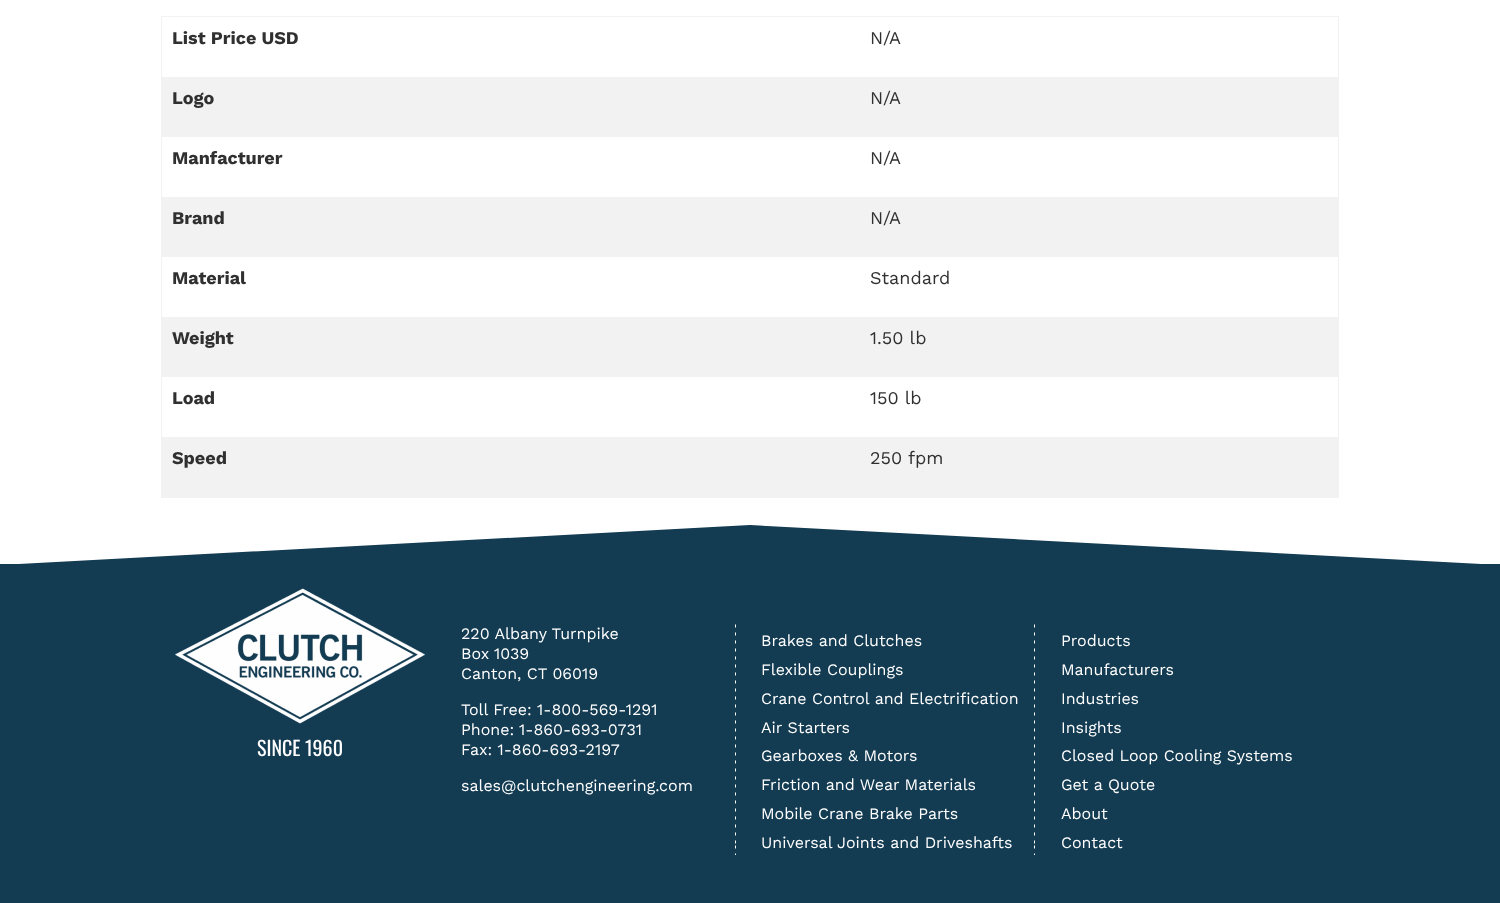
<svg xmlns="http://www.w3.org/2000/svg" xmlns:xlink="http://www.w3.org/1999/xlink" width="1500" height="903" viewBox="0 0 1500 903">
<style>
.cls-1{font:bold 18px Work Sans;fill:#303030}
.cls-2{font:18px Work Sans;fill:#303030}
.cls-3{font:20px Oswald;fill:#ffffff}
.cls-4{font:16px Work Sans;fill:#ffffff}
</style>
<rect width="100%" height="100%" fill="#ffffff"/>
<rect fill="#f2f2f2" x="161" y="16" width="1178" height="1"/>
<rect fill="#f2f2f2" x="1338" y="16" width="1" height="482"/>
<rect fill="#f2f2f2" x="161" y="497" width="1178" height="1"/>
<rect fill="#f2f2f2" x="161" y="16" width="1" height="482"/>
<rect fill="#f2f2f2" x="162" y="77" width="1176" height="60"/>
<rect fill="#f2f2f2" x="162" y="197" width="1176" height="60"/>
<rect fill="#f2f2f2" x="162" y="317" width="1176" height="60"/>
<rect fill="#f2f2f2" x="162" y="437" width="1176" height="60"/>
<rect fill="#133b52" x="0" y="564" width="1500" height="339"/>
<path fill="#133b52" d="M750 525L0 565H1500Z"/>
<image xlink:href="image0.png" x="174" y="588" width="252" height="136"/>
<image xlink:href="image1.png" x="735" y="624" width="1" height="231"/>
<image xlink:href="image1.png" x="1034" y="624" width="1" height="231"/>
<text class="cls-1" x="172" y="44">List Price USD</text>
<text class="cls-2" x="870" y="44">N/A</text>
<text class="cls-1" x="172" y="104">Logo</text>
<text class="cls-2" x="870" y="104">N/A</text>
<text class="cls-1" x="172" y="164">Manfacturer</text>
<text class="cls-2" x="870" y="164">N/A</text>
<text class="cls-1" x="172" y="224">Brand</text>
<text class="cls-2" x="870" y="224">N/A</text>
<text class="cls-1" x="172" y="284">Material</text>
<text class="cls-2" x="870" y="284">Standard</text>
<text class="cls-1" x="172" y="344">Weight</text>
<text class="cls-2" x="870" y="344">1.50 lb</text>
<text class="cls-1" x="172" y="404">Load</text>
<text class="cls-2" x="870" y="404">150 lb</text>
<text class="cls-1" x="172" y="464">Speed</text>
<text class="cls-2" x="870" y="464">250 fpm</text>
<text class="cls-3" x="257" y="756">SINCE 1960</text>
<text class="cls-4"><tspan x="461" y="639">220 Albany Turnpike</tspan><tspan x="461" y="659">Box 1039</tspan><tspan x="461" y="679">Canton, CT 06019</tspan></text>
<text class="cls-4" x="461" y="715">Toll Free:</text>
<text class="cls-4" x="537" y="715">1-800-569-1291</text>
<text class="cls-4" x="461" y="735">Phone:</text>
<text class="cls-4" x="519" y="735">1-860-693-0731</text>
<text class="cls-4" x="461" y="755">Fax: 1-860-693-2197</text>
<text class="cls-4" x="461" y="791">sales@clutchengineering.com</text>
<text class="cls-4"><tspan x="761" y="646">Brakes and Clutches</tspan><tspan x="761" y="675">Flexible Couplings</tspan><tspan x="761" y="704">Crane Control and Electrification</tspan><tspan x="761" y="733">Air Starters</tspan><tspan x="761" y="761">Gearboxes &amp; Motors</tspan><tspan x="761" y="790">Friction and Wear Materials</tspan><tspan x="761" y="819">Mobile Crane Brake Parts</tspan><tspan x="761" y="848">Universal Joints and Driveshafts</tspan></text>
<text class="cls-4"><tspan x="1061" y="646">Products</tspan><tspan x="1061" y="675">Manufacturers</tspan><tspan x="1061" y="704">Industries</tspan><tspan x="1061" y="733">Insights</tspan><tspan x="1061" y="761">Closed Loop Cooling Systems</tspan><tspan x="1061" y="790">Get a Quote</tspan><tspan x="1061" y="819">About</tspan><tspan x="1061" y="848">Contact</tspan></text>
</svg>
